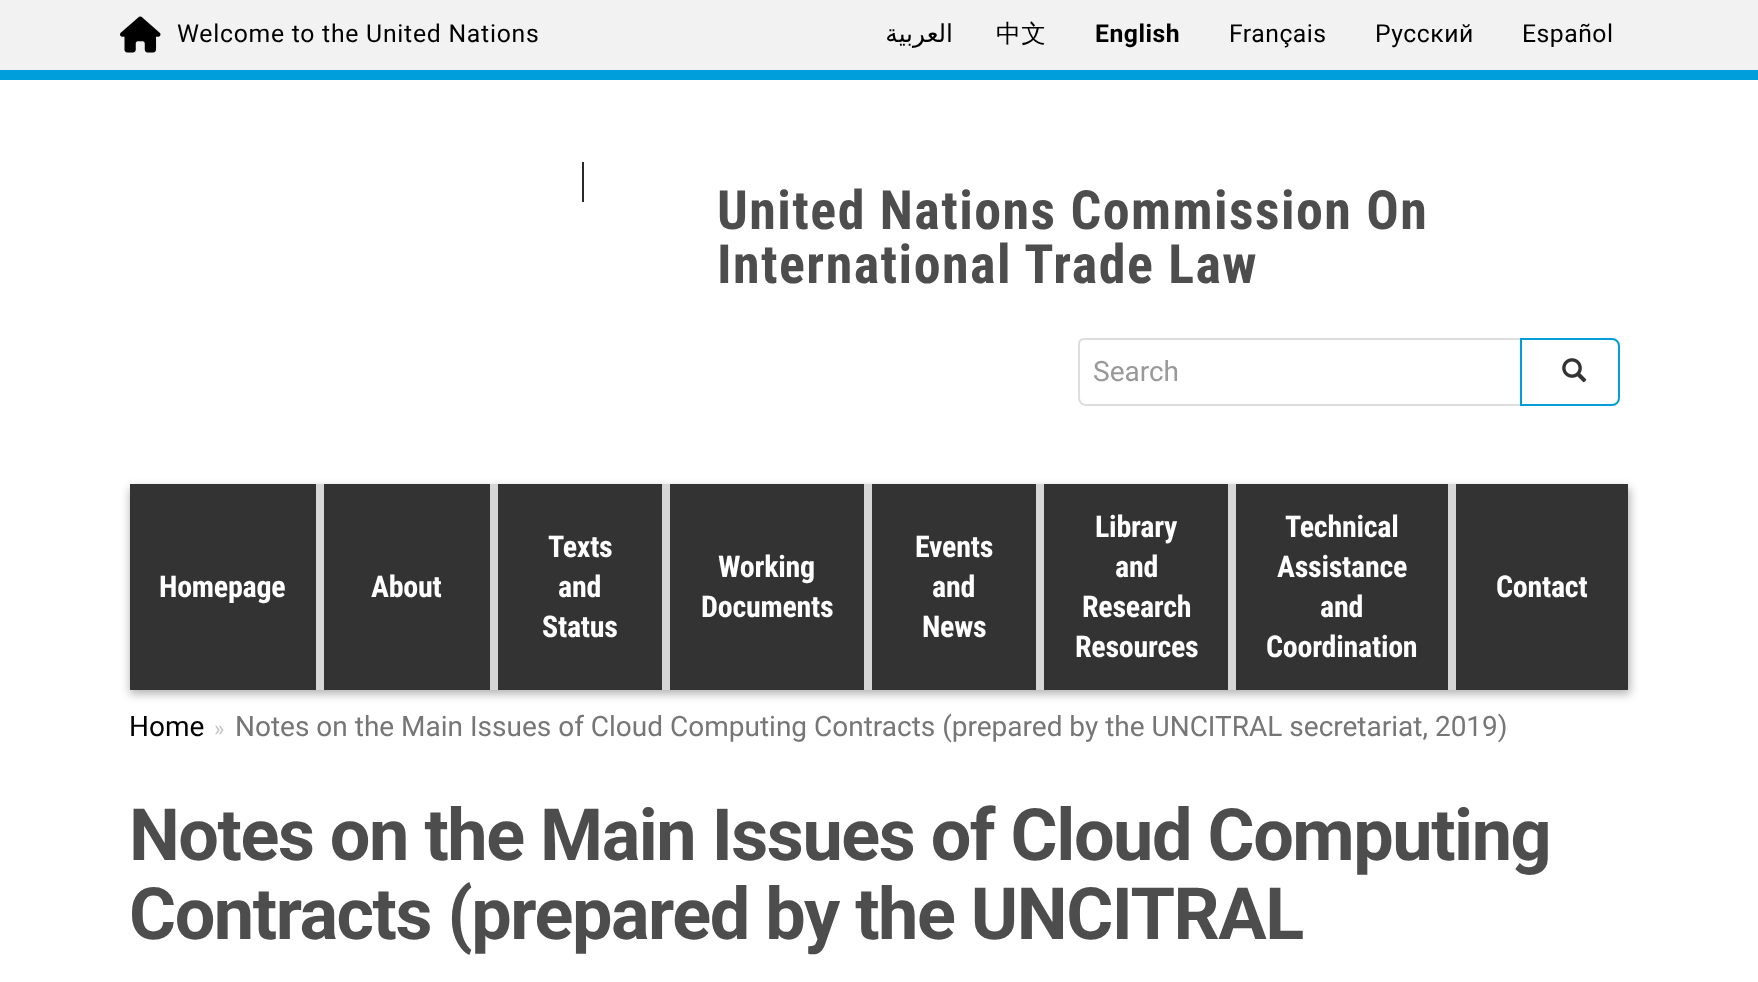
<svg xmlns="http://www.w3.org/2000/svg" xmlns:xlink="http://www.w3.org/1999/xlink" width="1758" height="982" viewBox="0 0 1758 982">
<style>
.cls-1{font:24.75px Roboto;letter-spacing:0.75px;fill:#000000}
.cls-2{font:24.75px DejaVu Sans;letter-spacing:0.5px;direction:rtl;fill:#000000}
.cls-3{font:500 24.75px WenQuanYi Zen Hei;letter-spacing:0.5px;fill:#000000}
.cls-4{font:bold 24.75px Roboto;letter-spacing:0.5px;fill:#000000}
.cls-5{font:24.75px Roboto;letter-spacing:0.5px;fill:#000000}
.cls-6{font:bold 54px Roboto Condensed;letter-spacing:1.45px;fill:#4d4d4d}
.cls-7{font:28px Roboto;fill:#999999}
.cls-8{font:bold 30px Roboto Condensed;letter-spacing:-0.25px;fill:#ffffff}
.cls-9{font:28px Roboto;fill:#000000}
.cls-10{font:22px Roboto;fill:#c4c4c4}
.cls-11{font:28px Roboto;fill:#767676}
.cls-12{font:bold 72px Roboto;letter-spacing:-1.45px;fill:#4d4d4d}
</style>
<rect width="100%" height="100%" fill="#ffffff"/>
<rect fill="#f2f2f2" x="0" y="0" width="1758" height="70"/>
<rect fill="#009edb" x="0" y="70" width="1758" height="10"/>
<image xlink:href="image0.png" x="120" y="16" width="41" height="37"/>
<rect fill="#282828" x="582" y="162" width="2" height="40"/>
<path fill="none" stroke="#dddddd" stroke-width="2" d="M1084 339H1521V405H1086C1082 405 1079 402 1079 398V344C1079 341 1081 339 1084 339Z"/>
<path fill="none" stroke="#009edb" stroke-width="2" d="M1521 339H1612C1616 339 1619 342 1619 346V398C1619 402 1616 405 1612 405H1521Z"/>
<image xlink:href="image1.png" x="1562" y="358" width="25" height="25"/>
<rect fill="#000000" fill-opacity="0.3" filter="blur(5px)" x="130" y="488" width="1500" height="206"/>
<rect fill="#333333" x="130" y="484" width="186" height="206"/>
<rect fill="#d6d6d6" x="316" y="484" width="8" height="206"/>
<rect fill="#333333" x="324" y="484" width="166" height="206"/>
<rect fill="#d6d6d6" x="490" y="484" width="8" height="206"/>
<rect fill="#333333" x="498" y="484" width="164" height="206"/>
<rect fill="#d6d6d6" x="662" y="484" width="8" height="206"/>
<rect fill="#333333" x="670" y="484" width="194" height="206"/>
<rect fill="#d6d6d6" x="864" y="484" width="8" height="206"/>
<rect fill="#333333" x="872" y="484" width="164" height="206"/>
<rect fill="#d6d6d6" x="1036" y="484" width="8" height="206"/>
<rect fill="#333333" x="1044" y="484" width="184" height="206"/>
<rect fill="#d6d6d6" x="1228" y="484" width="8" height="206"/>
<rect fill="#333333" x="1236" y="484" width="212" height="206"/>
<rect fill="#d6d6d6" x="1448" y="484" width="8" height="206"/>
<rect fill="#333333" x="1456" y="484" width="172" height="206"/>
<text class="cls-1" x="177" y="42">Welcome to the United Nations</text>
<text class="cls-2" x="953" y="42">العربية</text>
<text class="cls-3" x="996" y="42">中文</text>
<text class="cls-4" x="1095" y="42">English</text>
<text class="cls-5" x="1229" y="42">Français</text>
<text class="cls-5" x="1375" y="42">Русский</text>
<text class="cls-5" x="1522" y="42">Español</text>
<text class="cls-6"><tspan x="717" y="229">United Nations Commission On</tspan><tspan x="717" y="283">International Trade Law</tspan></text>
<text class="cls-7" x="1093" y="381">Search</text>
<text class="cls-8" x="159" y="597">Homepage</text>
<text class="cls-8" x="371" y="597">About</text>
<text class="cls-8" x="548" y="557">Texts</text>
<text class="cls-8" x="558" y="597">and</text>
<text class="cls-8" x="542" y="637">Status</text>
<text class="cls-8" x="718" y="577">Working</text>
<text class="cls-8" x="701" y="617">Documents</text>
<text class="cls-8" x="915" y="557">Events</text>
<text class="cls-8" x="932" y="597">and</text>
<text class="cls-8" x="922" y="637">News</text>
<text class="cls-8" x="1095" y="537">Library</text>
<text class="cls-8" x="1115" y="577">and</text>
<text class="cls-8" x="1082" y="617">Research</text>
<text class="cls-8" x="1075" y="657">Resources</text>
<text class="cls-8" x="1285" y="537">Technical</text>
<text class="cls-8" x="1277" y="577">Assistance</text>
<text class="cls-8" x="1320" y="617">and</text>
<text class="cls-8" x="1266" y="657">Coordination</text>
<text class="cls-8" x="1496" y="597">Contact</text>
<text class="cls-9" x="129" y="736">Home</text>
<text class="cls-10" x="214" y="736">»</text>
<text class="cls-11" x="235" y="736">Notes on the Main Issues of Cloud Computing Contracts (prepared by the UNCITRAL secretariat, 2019)</text>
<text class="cls-12"><tspan x="129" y="860">Notes on the Main Issues of Cloud Computing</tspan><tspan x="129" y="939">Contracts (prepared by the UNCITRAL</tspan></text>
</svg>
